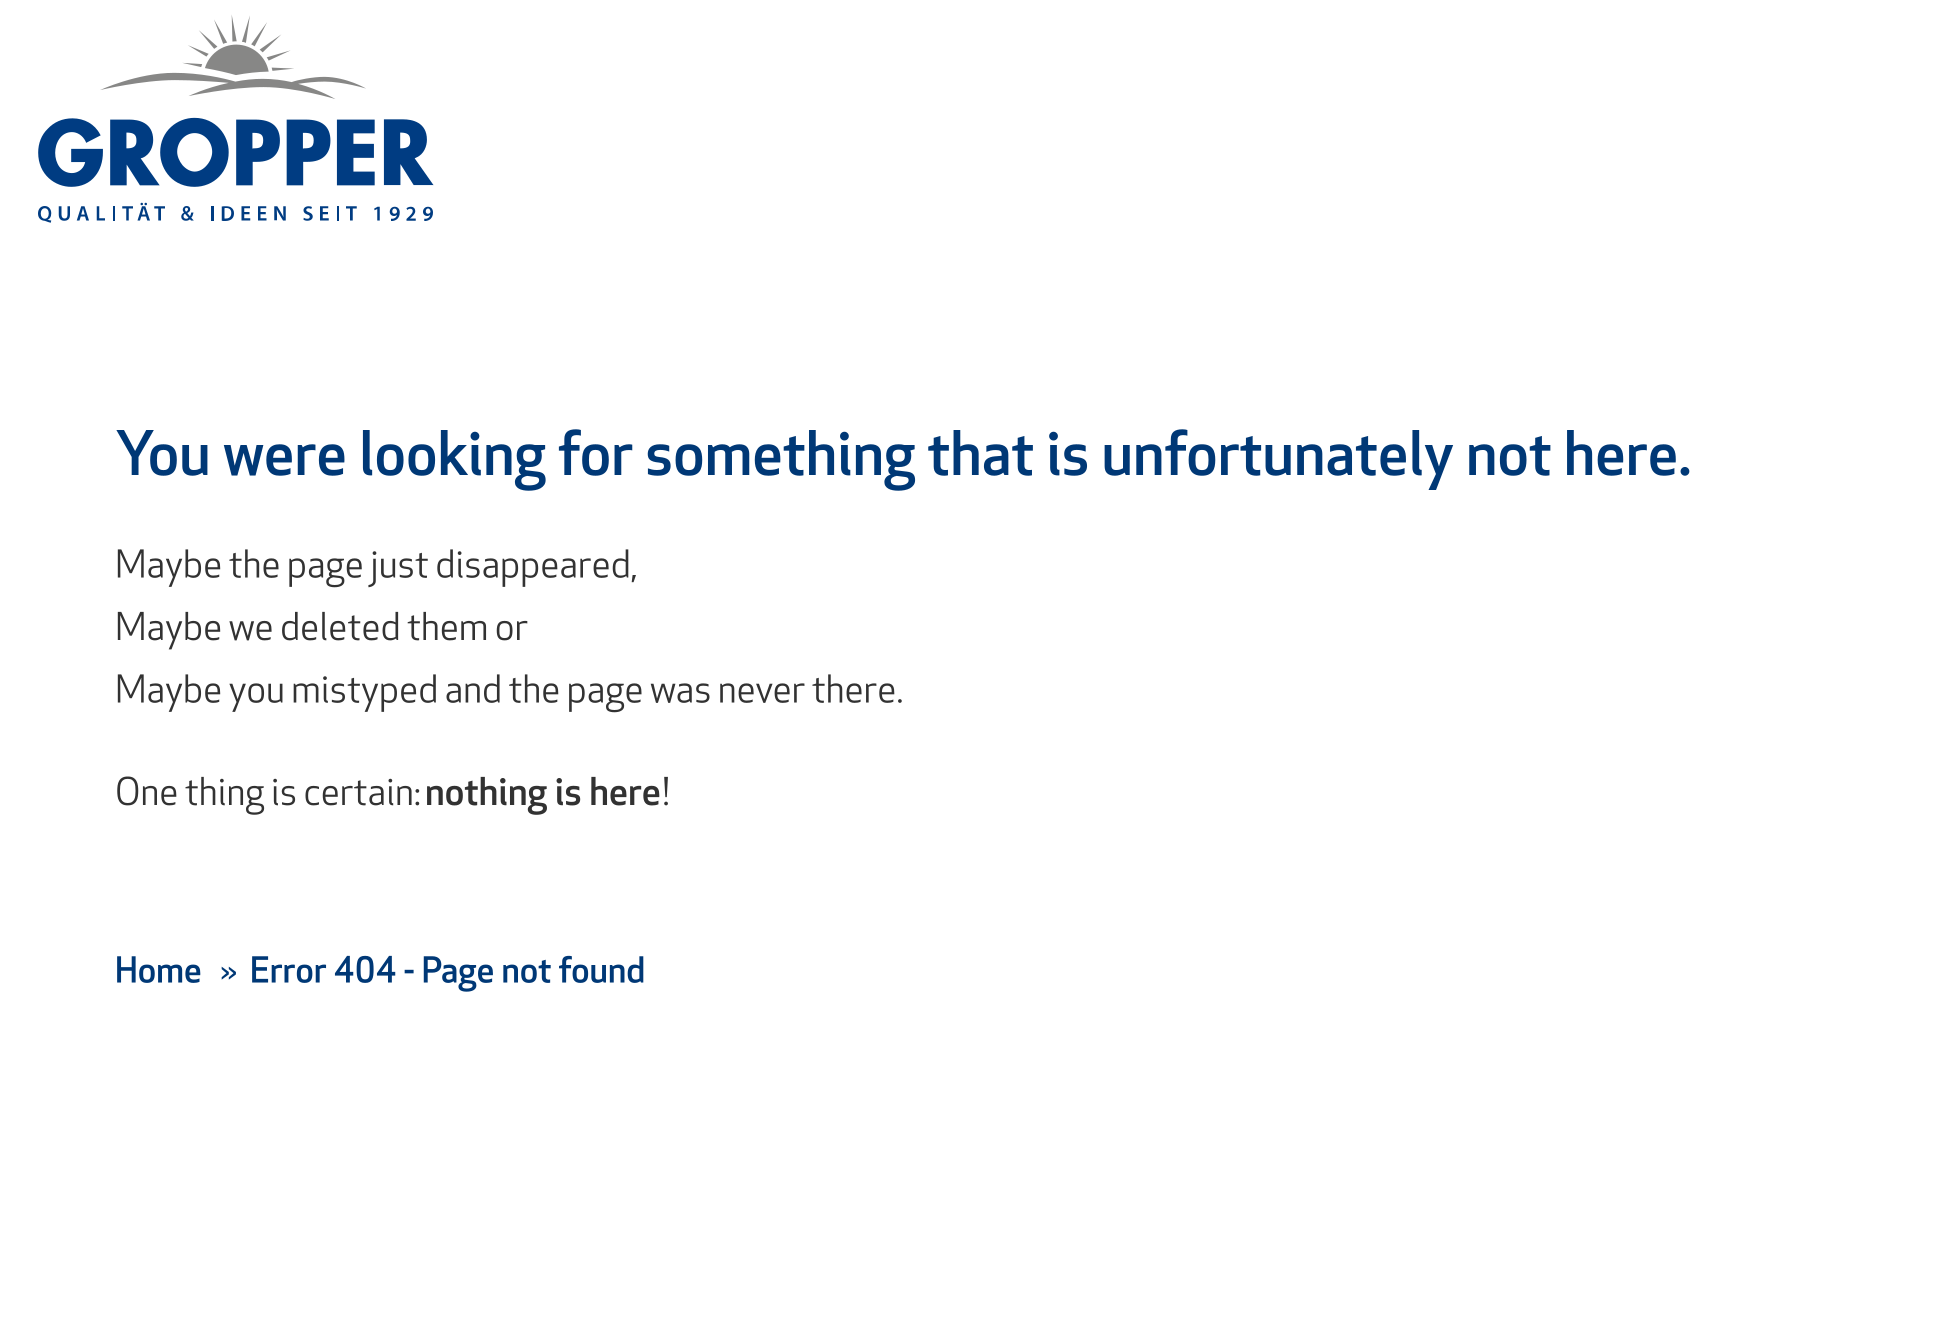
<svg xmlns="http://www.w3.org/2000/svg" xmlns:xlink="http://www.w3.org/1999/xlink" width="1952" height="1325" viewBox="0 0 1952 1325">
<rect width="100%" height="100%" fill="#ffffff"/>
<image xlink:href="image0.png" x="38" y="14" width="396" height="209"/>
<image xlink:href="image1.png" x="116" y="429" width="1574" height="62"/>
<image xlink:href="image2.png" x="117" y="549" width="519" height="39"/>
<image xlink:href="image3.png" x="117" y="611" width="411" height="39"/>
<image xlink:href="image4.png" x="117" y="674" width="785" height="39"/>
<image xlink:href="image5.png" x="117" y="776" width="303" height="39"/>
<image xlink:href="image6.png" x="427" y="776" width="233" height="39"/>
<image xlink:href="image7.png" x="664" y="776" width="4" height="30"/>
<image xlink:href="image8.png" x="117" y="956" width="84" height="27"/>
<image xlink:href="image9.png" x="221" y="966" width="15" height="14"/>
<image xlink:href="image10.png" x="252" y="955" width="392" height="37"/>
</svg>
